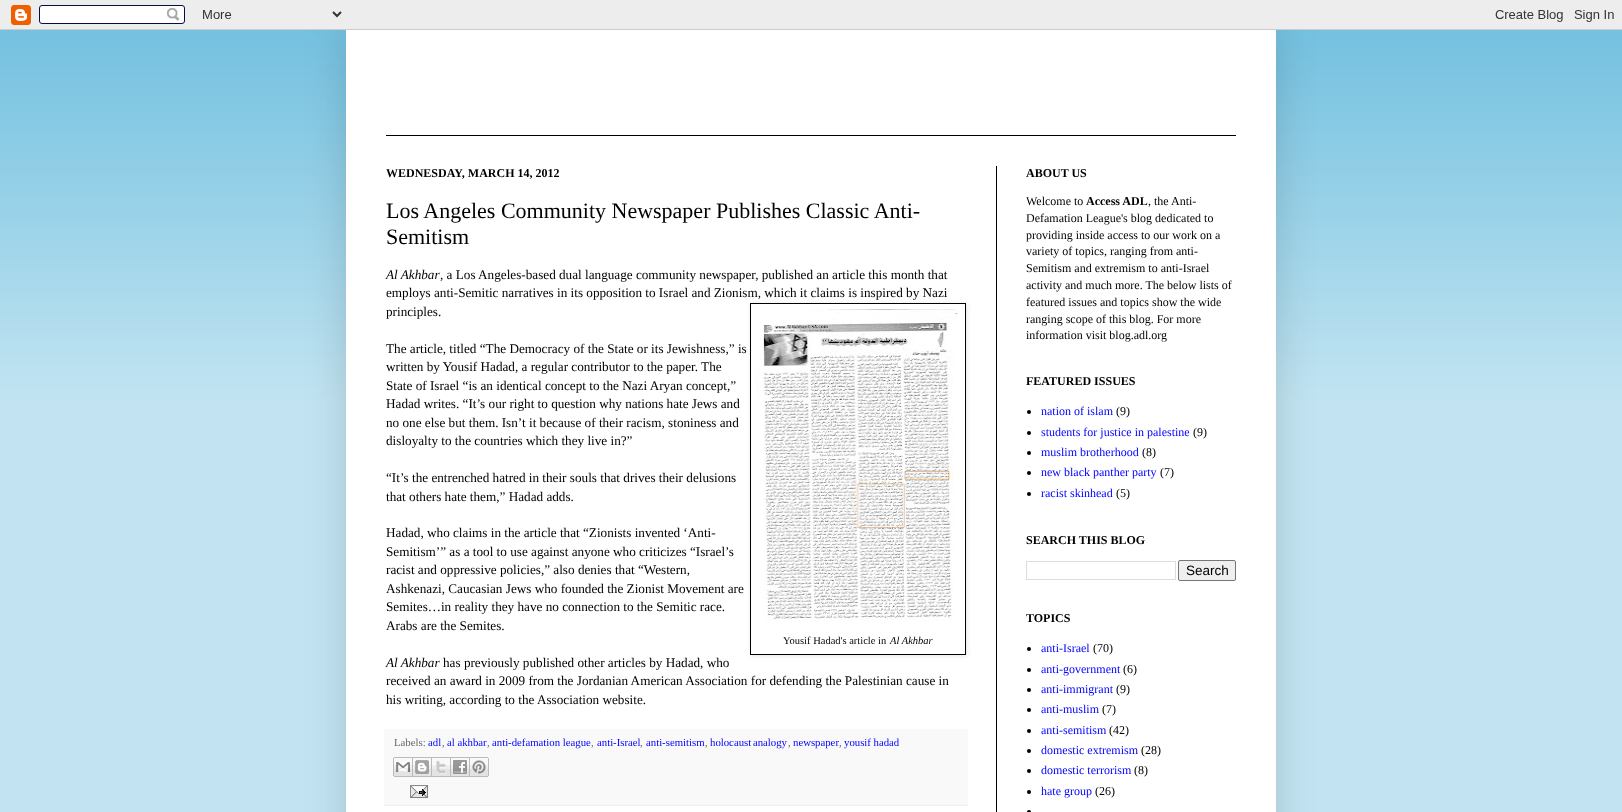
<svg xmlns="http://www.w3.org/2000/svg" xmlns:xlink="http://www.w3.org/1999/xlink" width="1622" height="812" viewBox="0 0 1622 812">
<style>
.cls-1{font:bold 12px Liberation Serif;fill:#000000}
.cls-2{font:22px Liberation Serif;fill:#000000}
.cls-3{font:italic 13.2px Liberation Serif;fill:#000000}
.cls-4{font:13.2px Liberation Serif;fill:#000000}
.cls-5{font:10.5px Liberation Serif;fill:#000000}
.cls-6{font:italic 10.5px Liberation Serif;fill:#000000}
.cls-7{font:10.75px Liberation Serif;fill:#666666}
.cls-8{font:10.75px Liberation Serif;fill:#0000ff}
.cls-9{font:12px Liberation Serif;fill:#000000}
.cls-10{font:12px Liberation Serif;fill:#0000ff}
.cls-11{font:13.5px Liberation Sans;fill:#000000}
</style>
<defs>
<clipPath id="clip1"><path d="M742 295H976V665H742ZM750 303H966V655H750Z" clip-rule="evenodd"/></clipPath>
</defs>
<rect width="100%" height="100%" fill="#c2e4f2"/>
<rect fill="#66bbdd" x="0" y="30" width="1622" height="370"/>
<image xlink:href="image1.png" x="0" y="30" width="1622" height="370"/>
<rect fill="#000000" fill-opacity="0.15" filter="blur(20px)" x="346" y="30" width="930" height="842"/>
<image xlink:href="image0.png" x="0" y="0" width="1622" height="30"/>
<rect fill="#ffffff" x="346" y="30" width="930" height="782"/>
<rect fill="#000000" x="386" y="135" width="850" height="1"/>
<rect fill="#000000" x="996" y="166" width="1" height="646"/>
<g clip-path="url(#clip1)">
<rect fill="#000000" fill-opacity="0.1" filter="blur(2.5px)" x="751" y="304" width="216" height="352"/>
</g>
<rect fill="none" stroke="#000000" x="750.5" y="303.5" width="215" height="351"/>
<image xlink:href="image2.png" x="756" y="309" width="202" height="312"/>
<rect fill="#f9f9f9" x="384" y="729" width="584" height="76"/>
<rect fill="#eeeeee" x="384" y="805" width="584" height="1"/>
<image xlink:href="image3.png" x="393" y="757" width="20" height="20"/>
<image xlink:href="image4.png" x="413" y="757" width="19" height="20"/>
<image xlink:href="image5.png" x="432" y="757" width="19" height="20"/>
<image xlink:href="image6.png" x="451" y="757" width="19" height="20"/>
<image xlink:href="image7.png" x="470" y="757" width="19" height="20"/>
<image xlink:href="image8.png" x="410" y="785" width="18" height="13"/>
<circle fill="#000000" cx="1029" cy="412" r="2"/>
<circle fill="#000000" cx="1029" cy="433" r="2"/>
<circle fill="#000000" cx="1029" cy="453" r="2"/>
<circle fill="#000000" cx="1029" cy="473" r="2"/>
<circle fill="#000000" cx="1029" cy="494" r="2"/>
<rect fill="none" stroke="#dddddd" x="1026.5" y="561.5" width="149" height="18"/>
<rect fill="#efefef" stroke="#767676" x="1178.5" y="560.5" width="57" height="20" rx="1.5"/>
<circle fill="#000000" cx="1029" cy="649" r="2"/>
<circle fill="#000000" cx="1029" cy="670" r="2"/>
<circle fill="#000000" cx="1029" cy="690" r="2"/>
<circle fill="#000000" cx="1029" cy="710" r="2"/>
<circle fill="#000000" cx="1029" cy="731" r="2"/>
<circle fill="#000000" cx="1029" cy="751" r="2"/>
<circle fill="#000000" cx="1029" cy="771" r="2"/>
<circle fill="#000000" cx="1029" cy="792" r="2"/>
<circle fill="#000000" cx="1029" cy="812" r="2"/>
<text class="cls-1" x="386" y="177">WEDNESDAY, MARCH 14, 2012</text>
<text class="cls-2"><tspan x="386" y="218">Los Angeles Community Newspaper Publishes Classic Anti-</tspan><tspan x="386" y="244">Semitism</tspan></text>
<text class="cls-3" x="386" y="279">Al Akhbar</text>
<text class="cls-4" x="440" y="279">, a Los Angeles-based dual language community newspaper, published an article this month that</text>
<text class="cls-4"><tspan x="386" y="297">employs anti-Semitic narratives in its opposition to Israel and Zionism, which it claims is inspired by Nazi</tspan><tspan x="386" y="316">principles.</tspan></text>
<text class="cls-4"><tspan x="386" y="353">The article, titled “The Democracy of the State or its Jewishness,” is</tspan><tspan x="386" y="371">written by Yousif Hadad, a regular contributor to the paper. The</tspan><tspan x="386" y="390">State of Israel “is an identical concept to the Nazi Aryan concept,”</tspan><tspan x="386" y="408">Hadad writes. “It’s our right to question why nations hate Jews and</tspan><tspan x="386" y="427">no one else but them. Isn’t it because of their racism, stoniness and</tspan><tspan x="386" y="445">disloyalty to the countries which they live in?”</tspan></text>
<text class="cls-4"><tspan x="386" y="482">“It’s the entrenched hatred in their souls that drives their delusions</tspan><tspan x="386" y="501">that others hate them,” Hadad adds.</tspan></text>
<text class="cls-4"><tspan x="386" y="537">Hadad, who claims in the article that “Zionists invented ‘Anti-</tspan><tspan x="386" y="556">Semitism’” as a tool to use against anyone who criticizes “Israel’s</tspan><tspan x="386" y="574">racist and oppressive policies,” also denies that “Western,</tspan><tspan x="386" y="593">Ashkenazi, Caucasian Jews who founded the Zionist Movement are</tspan><tspan x="386" y="611">Semites…in reality they have no connection to the Semitic race.</tspan><tspan x="386" y="630">Arabs are the Semites.</tspan></text>
<text class="cls-5" x="783" y="644">Yousif Hadad's article in</text>
<text class="cls-6" x="890" y="644">Al Akhbar</text>
<text class="cls-3" x="386" y="667">Al Akhbar</text>
<text class="cls-4" x="443" y="667">has previously published other articles by Hadad, who</text>
<text class="cls-4"><tspan x="386" y="685">received an award in 2009 from the Jordanian American Association for defending the Palestinian cause in</tspan><tspan x="386" y="704">his writing, according to the Association website.</tspan></text>
<text class="cls-7" x="394" y="746">Labels:</text>
<text class="cls-8" x="428" y="746">adl</text>
<text class="cls-7" x="442" y="746">,</text>
<text class="cls-8" x="447" y="746">al akhbar</text>
<text class="cls-7" x="487" y="746">,</text>
<text class="cls-8" x="492" y="746">anti-defamation league</text>
<text class="cls-7" x="591" y="746">,</text>
<text class="cls-8" x="597" y="746">anti-Israel</text>
<text class="cls-7" x="640" y="746">,</text>
<text class="cls-8" x="646" y="746">anti-semitism</text>
<text class="cls-7" x="705" y="746">,</text>
<text class="cls-8" x="710" y="746" word-spacing="-1">holocaust analogy</text>
<text class="cls-7" x="788" y="746">,</text>
<text class="cls-8" x="793" y="746">newspaper</text>
<text class="cls-7" x="839" y="746">,</text>
<text class="cls-8" x="844" y="746">yousif hadad</text>
<text class="cls-1" x="1026" y="177">ABOUT US</text>
<text class="cls-9" x="1026" y="205">Welcome to</text>
<text class="cls-1" x="1086" y="205">Access ADL</text>
<text class="cls-9" x="1148" y="205">, the Anti-</text>
<text class="cls-9"><tspan x="1026" y="222">Defamation League's blog dedicated to</tspan><tspan x="1026" y="239">providing inside access to our work on a</tspan><tspan x="1026" y="255">variety of topics, ranging from anti-</tspan><tspan x="1026" y="272">Semitism and extremism to anti-Israel</tspan><tspan x="1026" y="289">activity and much more. The below lists of</tspan><tspan x="1026" y="306">featured issues and topics show the wide</tspan><tspan x="1026" y="323">ranging scope of this blog. For more</tspan><tspan x="1026" y="339">information visit blog.adl.org</tspan></text>
<text class="cls-1" x="1026" y="385">FEATURED ISSUES</text>
<text class="cls-10" x="1041" y="415">nation of islam</text>
<text class="cls-9" x="1116" y="415">(9)</text>
<text class="cls-10" x="1041" y="436">students for justice in palestine</text>
<text class="cls-9" x="1193" y="436">(9)</text>
<text class="cls-10" x="1041" y="456">muslim brotherhood</text>
<text class="cls-9" x="1142" y="456">(8)</text>
<text class="cls-10" x="1041" y="476">new black panther party</text>
<text class="cls-9" x="1160" y="476">(7)</text>
<text class="cls-10" x="1041" y="497">racist skinhead</text>
<text class="cls-9" x="1116" y="497">(5)</text>
<text class="cls-1" x="1026" y="544">SEARCH THIS BLOG</text>
<text class="cls-11" x="1186" y="575">Search</text>
<text class="cls-1" x="1026" y="622">TOPICS</text>
<text class="cls-10" x="1041" y="652">anti-Israel</text>
<text class="cls-9" x="1093" y="652">(70)</text>
<text class="cls-10" x="1041" y="673">anti-government</text>
<text class="cls-9" x="1123" y="673">(6)</text>
<text class="cls-10" x="1041" y="693">anti-immigrant</text>
<text class="cls-9" x="1116" y="693">(9)</text>
<text class="cls-10" x="1041" y="713">anti-muslim</text>
<text class="cls-9" x="1102" y="713">(7)</text>
<text class="cls-10" x="1041" y="734">anti-semitism</text>
<text class="cls-9" x="1109" y="734">(42)</text>
<text class="cls-10" x="1041" y="754">domestic extremism</text>
<text class="cls-9" x="1141" y="754">(28)</text>
<text class="cls-10" x="1041" y="774">domestic terrorism</text>
<text class="cls-9" x="1134" y="774">(8)</text>
<text class="cls-10" x="1041" y="795">hate group</text>
<text class="cls-9" x="1095" y="795">(26)</text>
</svg>
